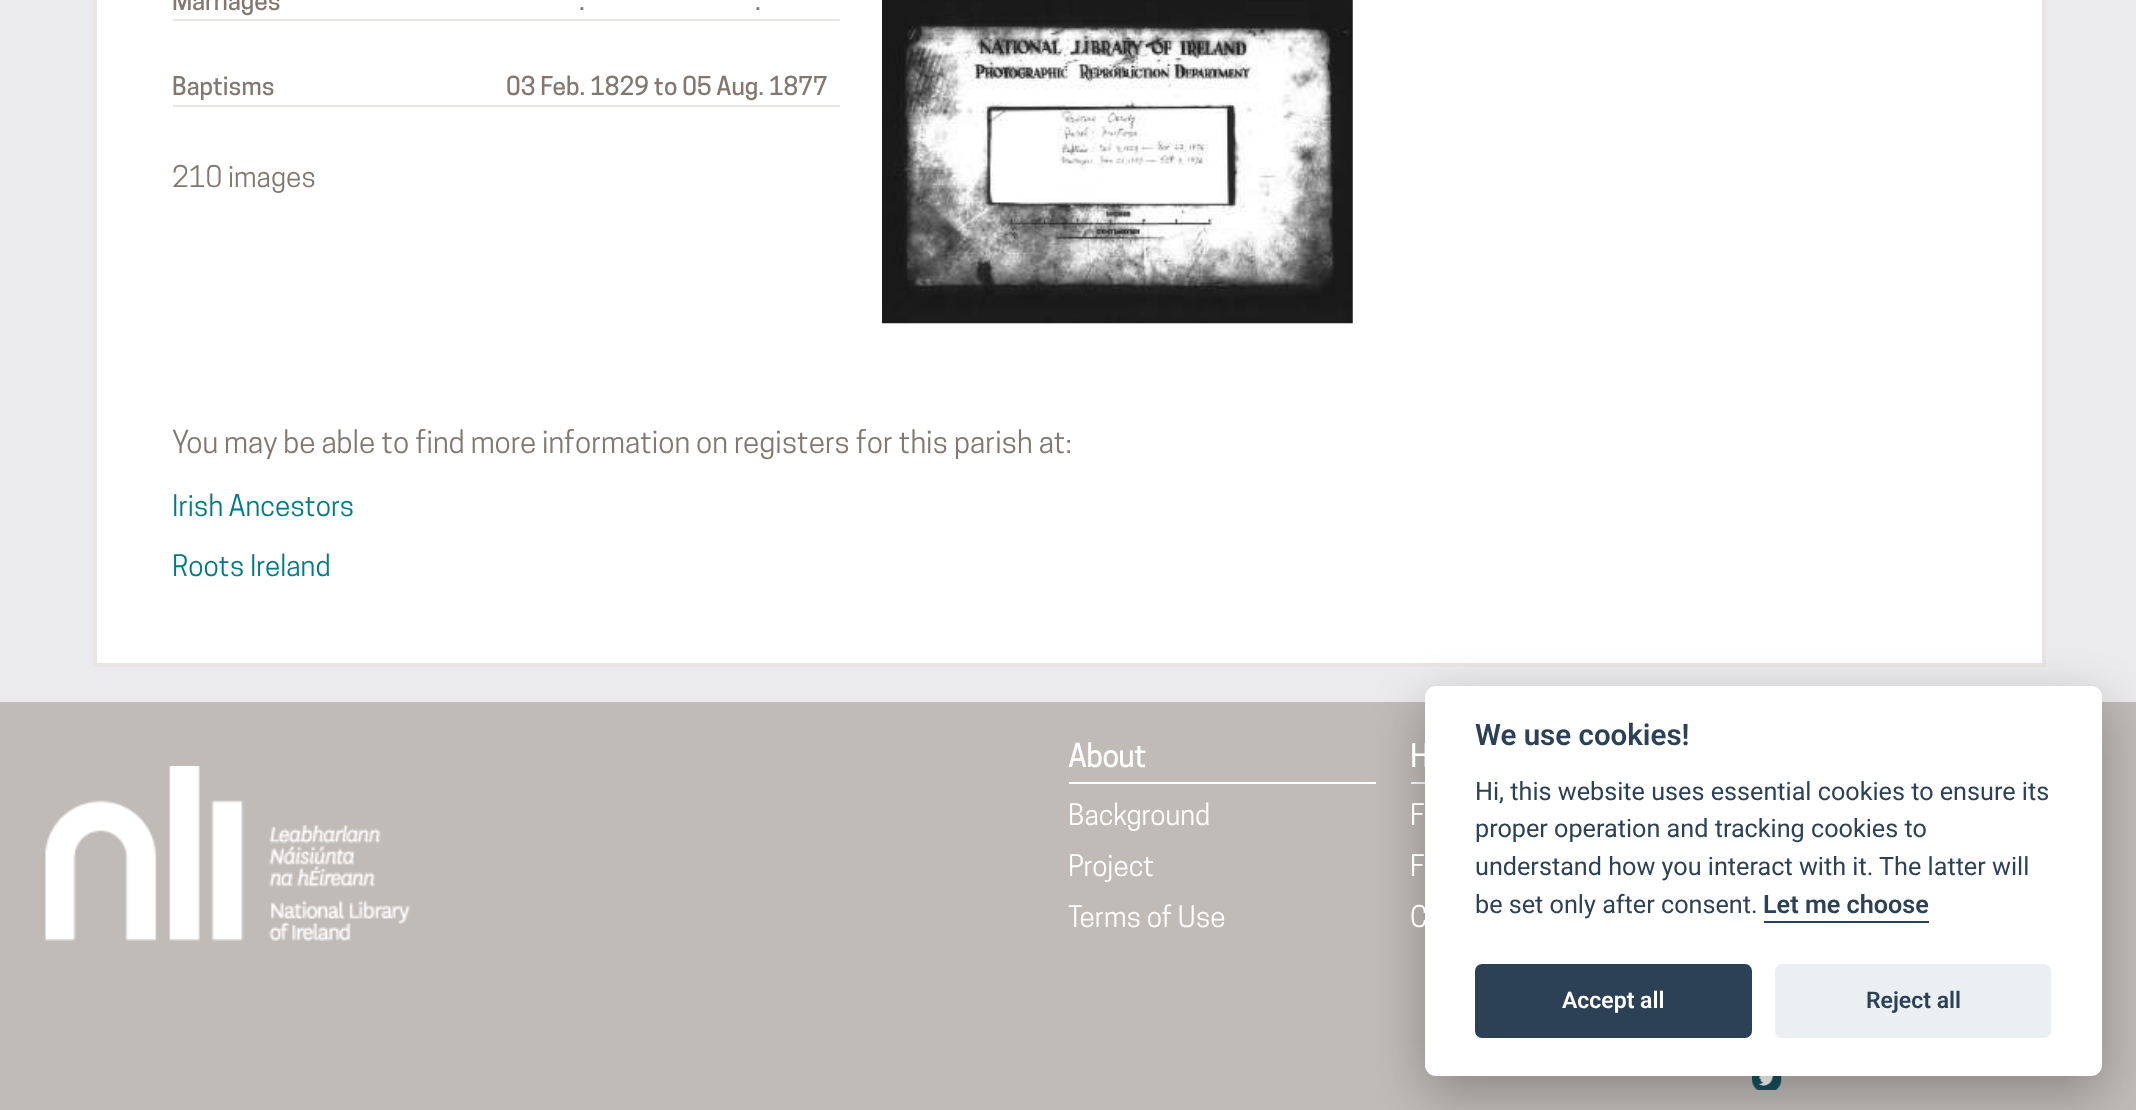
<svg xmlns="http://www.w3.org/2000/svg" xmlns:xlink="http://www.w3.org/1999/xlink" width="2136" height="1110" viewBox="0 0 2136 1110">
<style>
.cls-1{font:500 24.5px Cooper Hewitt;fill:#82786f}
.cls-2{font:28px Cooper Hewitt;fill:#82786f}
.cls-3{font:29.75px Cooper Hewitt;fill:#82786f}
.cls-4{font:28px Cooper Hewitt;fill:#007a87}
.cls-5{font:bold 29.75px Cooper Hewitt;fill:#ffffff}
.cls-6{font:28px Cooper Hewitt;fill:#ffffff}
.cls-7{font:600 29.5px Roboto;fill:#2d4156}
.cls-8{font:25.2px Roboto;fill:#2d4156}
.cls-9{font:600 25.2px Roboto;fill:#2d4156}
.cls-10{font:600 23px Roboto;fill:#ffffff}
.cls-11{font:600 23px Roboto;fill:#2d4156}
</style>
<rect width="100%" height="100%" fill="#ebebed"/>
<rect fill="#ffffff" stroke="#e8e5e2" stroke-width="4" x="95" y="-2" width="1949" height="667"/>
<rect fill="#e8e5e2" x="173" y="19" width="667" height="2"/>
<rect fill="#e8e5e2" x="173" y="105" width="667" height="2"/>
<image xlink:href="image0.png" x="882" y="0" width="471" height="324"/>
<rect fill="#c0bbb7" x="0" y="702" width="2136" height="408"/>
<image xlink:href="image1.png" x="45" y="766" width="365" height="175"/>
<rect fill="#ffffff" x="1069" y="782" width="307" height="2"/>
<rect fill="#ffffff" x="1411" y="782" width="14" height="2"/>
<image xlink:href="image2.png" x="1752" y="1076" width="30" height="14"/>
<rect fill="#020203" fill-opacity="0.28" filter="blur(26px)" x="1425" y="704" width="677" height="390" rx="11"/>
<rect fill="#ffffff" x="1425" y="686" width="677" height="390" rx="11"/>
<rect fill="#2d4156" x="1764" y="921" width="165" height="2"/>
<rect fill="#2d4156" x="1475" y="964" width="277" height="74" rx="7"/>
<rect fill="#eaeff2" x="1775" y="964" width="276" height="74" rx="7"/>
<text class="cls-1" x="172" y="10">Marriages</text>
<text class="cls-1" x="579" y="10">.</text>
<text class="cls-1" x="755" y="10">.</text>
<text class="cls-1" x="172" y="95">Baptisms</text>
<text class="cls-1" x="506" y="95">03 Feb. 1829 to 05 Aug. 1877</text>
<text class="cls-2" x="172" y="187">210 images</text>
<text class="cls-3" x="172" y="453">You may be able to find more information on registers for this parish at:</text>
<text class="cls-4" x="172" y="516">Irish Ancestors</text>
<text class="cls-4" x="172" y="576">Roots Ireland</text>
<text class="cls-5" x="1068" y="767">About</text>
<text class="cls-6"><tspan x="1068" y="825">Background</tspan><tspan x="1068" y="876">Project</tspan><tspan x="1068" y="927">Terms of Use</tspan></text>
<text class="cls-5" x="1410" y="767">H</text>
<text class="cls-6"><tspan x="1410" y="825">F</tspan><tspan x="1410" y="876">F</tspan><tspan x="1410" y="927">C</tspan></text>
<text class="cls-7" x="1475" y="745">We use cookies!</text>
<text class="cls-8"><tspan x="1475" y="800">Hi, this website uses essential cookies to ensure its</tspan><tspan x="1475" y="837">proper operation and tracking cookies to</tspan><tspan x="1475" y="875">understand how you interact with it. The latter will</tspan><tspan x="1475" y="913">be set only after consent.</tspan></text>
<text class="cls-9" x="1763" y="913">Let me choose</text>
<text class="cls-10" x="1562" y="1008">Accept all</text>
<text class="cls-11" x="1866" y="1008">Reject all</text>
</svg>
